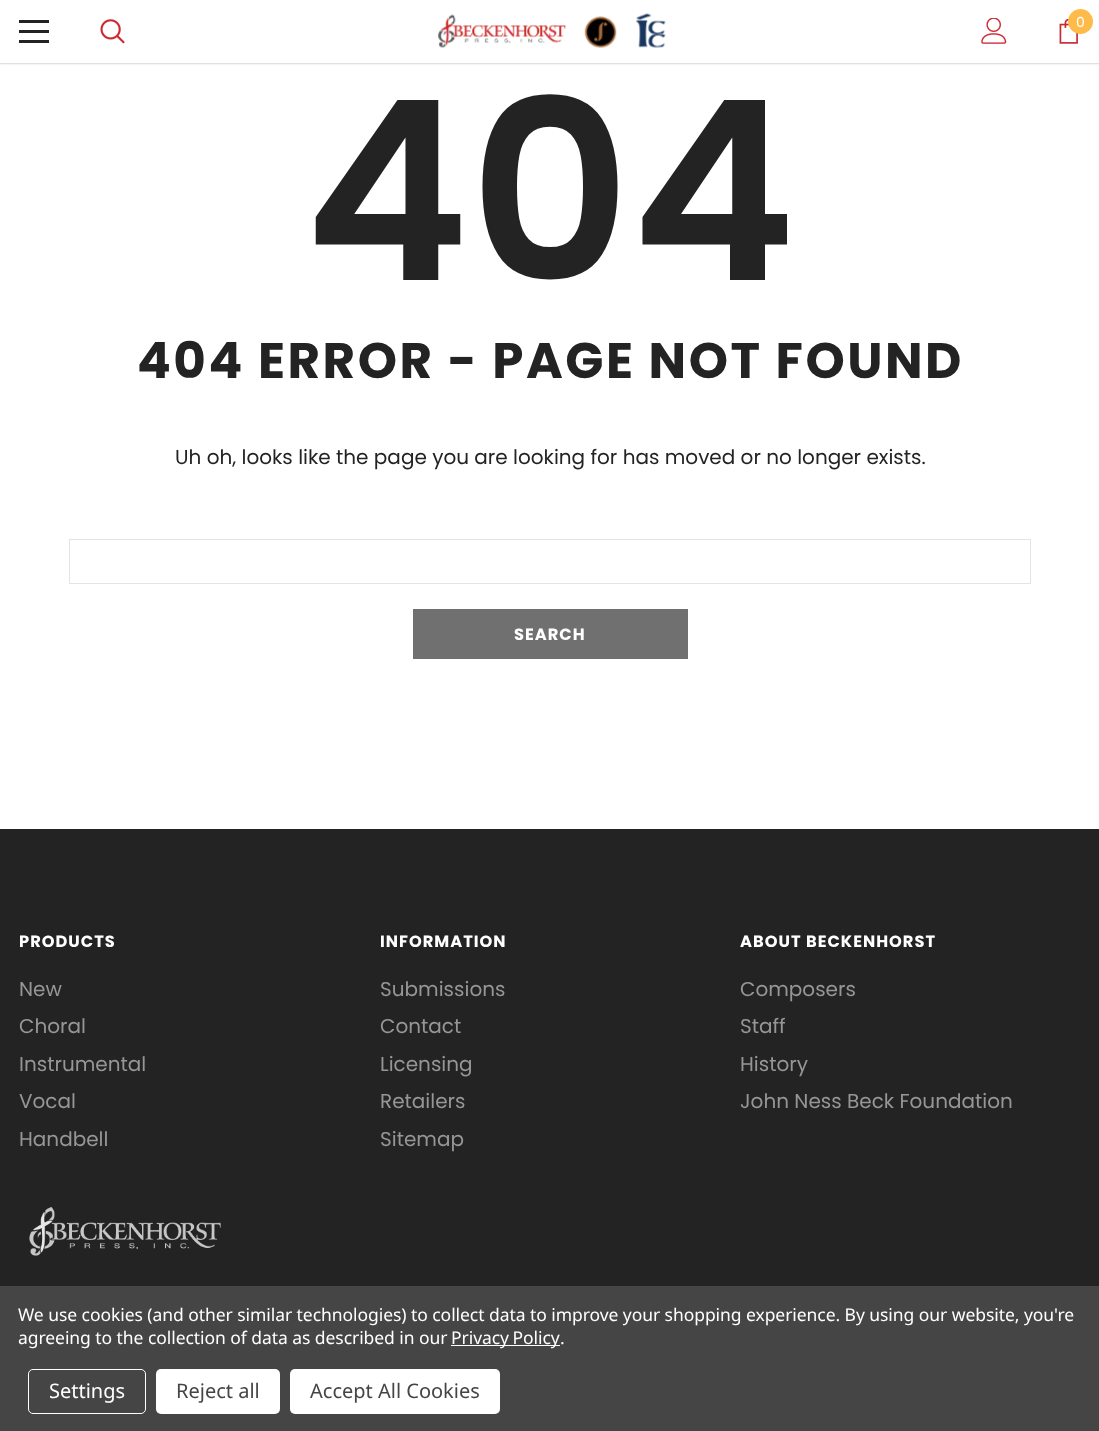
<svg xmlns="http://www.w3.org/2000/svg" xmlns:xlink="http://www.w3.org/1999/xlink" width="1099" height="1431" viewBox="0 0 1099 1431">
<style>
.cls-1{font:14px Poppins;fill:#ffffff}
.cls-2{font:600 250px Poppins;fill:#232323}
.cls-3{font:bold 50px Poppins;letter-spacing:2.5px;fill:#232323}
.cls-4{font:20px Poppins;fill:#232323}
.cls-5{font:bold 16.25px Poppins;letter-spacing:1px;fill:#ffffff}
.cls-6{font:20px Poppins;fill:#969696}
.cls-7{font:17.5px Noto Sans;letter-spacing:-0.06px;fill:#ffffff}
.cls-8{font:20px Noto Sans;fill:#ffffff}
.cls-9{font:20px Noto Sans;fill:#454545}
</style>
<rect width="100%" height="100%" fill="#ffffff"/>
<rect fill="#000000" fill-opacity="0.1" filter="blur(1px)" x="0" y="1" width="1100" height="63"/>
<rect fill="none" stroke="#000000" stroke-opacity="0.06" x="-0.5" y="-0.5" width="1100" height="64"/>
<rect fill="#ffffff" x="0" y="0" width="1099" height="63"/>
<rect fill="#232323" x="19" y="30" width="30" height="3"/>
<rect fill="#232323" x="19" y="20" width="30" height="3"/>
<rect fill="#232323" x="19" y="40" width="30" height="3"/>
<image xlink:href="image0.png" x="100" y="19" width="25" height="25"/>
<image xlink:href="image1.png" x="438" y="14" width="129" height="34"/>
<image xlink:href="image2.png" x="584" y="16" width="33" height="32"/>
<image xlink:href="image3.png" x="636" y="13" width="30" height="35"/>
<image xlink:href="image4.png" x="981" y="18" width="26" height="26"/>
<image xlink:href="image5.png" x="1059" y="19" width="19" height="25"/>
<circle fill="#ffbb49" cx="1080.5" cy="21.5" r="12.5"/>
<rect fill="none" stroke="#e2e4e8" x="69.5" y="539.5" width="961" height="44"/>
<rect fill="#707070" x="413" y="609" width="275" height="50"/>
<rect fill="#232323" x="0" y="829" width="1099" height="457"/>
<image xlink:href="image6.png" x="29" y="1207" width="192" height="49"/>
<rect fill="#454545" x="0" y="1286" width="1099" height="145"/>
<rect fill="#ffffff" x="451" y="1345" width="109" height="1"/>
<rect fill="none" stroke="#ffffff" x="28.5" y="1369.5" width="117" height="44" rx="4.5"/>
<rect fill="#ffffff" x="156" y="1369" width="124" height="45" rx="5"/>
<rect fill="#ffffff" x="290" y="1369" width="210" height="45" rx="5"/>
<text class="cls-1" x="1076" y="27">0</text>
<text class="cls-2" x="304" y="280">404</text>
<text class="cls-3" x="137" y="378">404 ERROR - PAGE NOT FOUND</text>
<text class="cls-4" x="175" y="464">Uh oh, looks like the page you are looking for has moved or no longer exists.</text>
<text class="cls-5" x="514" y="640">SEARCH</text>
<text class="cls-5" x="19" y="947">PRODUCTS</text>
<text class="cls-6"><tspan x="19" y="996">New</tspan><tspan x="19" y="1033">Choral</tspan><tspan x="19" y="1071">Instrumental</tspan><tspan x="19" y="1108">Vocal</tspan><tspan x="19" y="1146">Handbell</tspan></text>
<text class="cls-5" x="380" y="947">INFORMATION</text>
<text class="cls-6"><tspan x="380" y="996">Submissions</tspan><tspan x="380" y="1033">Contact</tspan><tspan x="380" y="1071">Licensing</tspan><tspan x="380" y="1108">Retailers</tspan><tspan x="380" y="1146">Sitemap</tspan></text>
<text class="cls-5" x="740" y="947">ABOUT BECKENHORST</text>
<text class="cls-6"><tspan x="740" y="996">Composers</tspan><tspan x="740" y="1033">Staff</tspan><tspan x="740" y="1071">History</tspan><tspan x="740" y="1108">John Ness Beck Foundation</tspan></text>
<text class="cls-7"><tspan x="18" y="1321">We use cookies (and other similar technologies) to collect data to improve your shopping experience. By using our website, you're</tspan><tspan x="18" y="1344">agreeing to the collection of data as described in our</tspan></text>
<text class="cls-7" x="451" y="1344" word-spacing="-1">Privacy Policy</text>
<text class="cls-7" x="560" y="1344">.</text>
<text class="cls-8" x="49" y="1398">Settings</text>
<text class="cls-9" x="176" y="1398">Reject all</text>
<text class="cls-9" x="310" y="1398">Accept All Cookies</text>
</svg>
